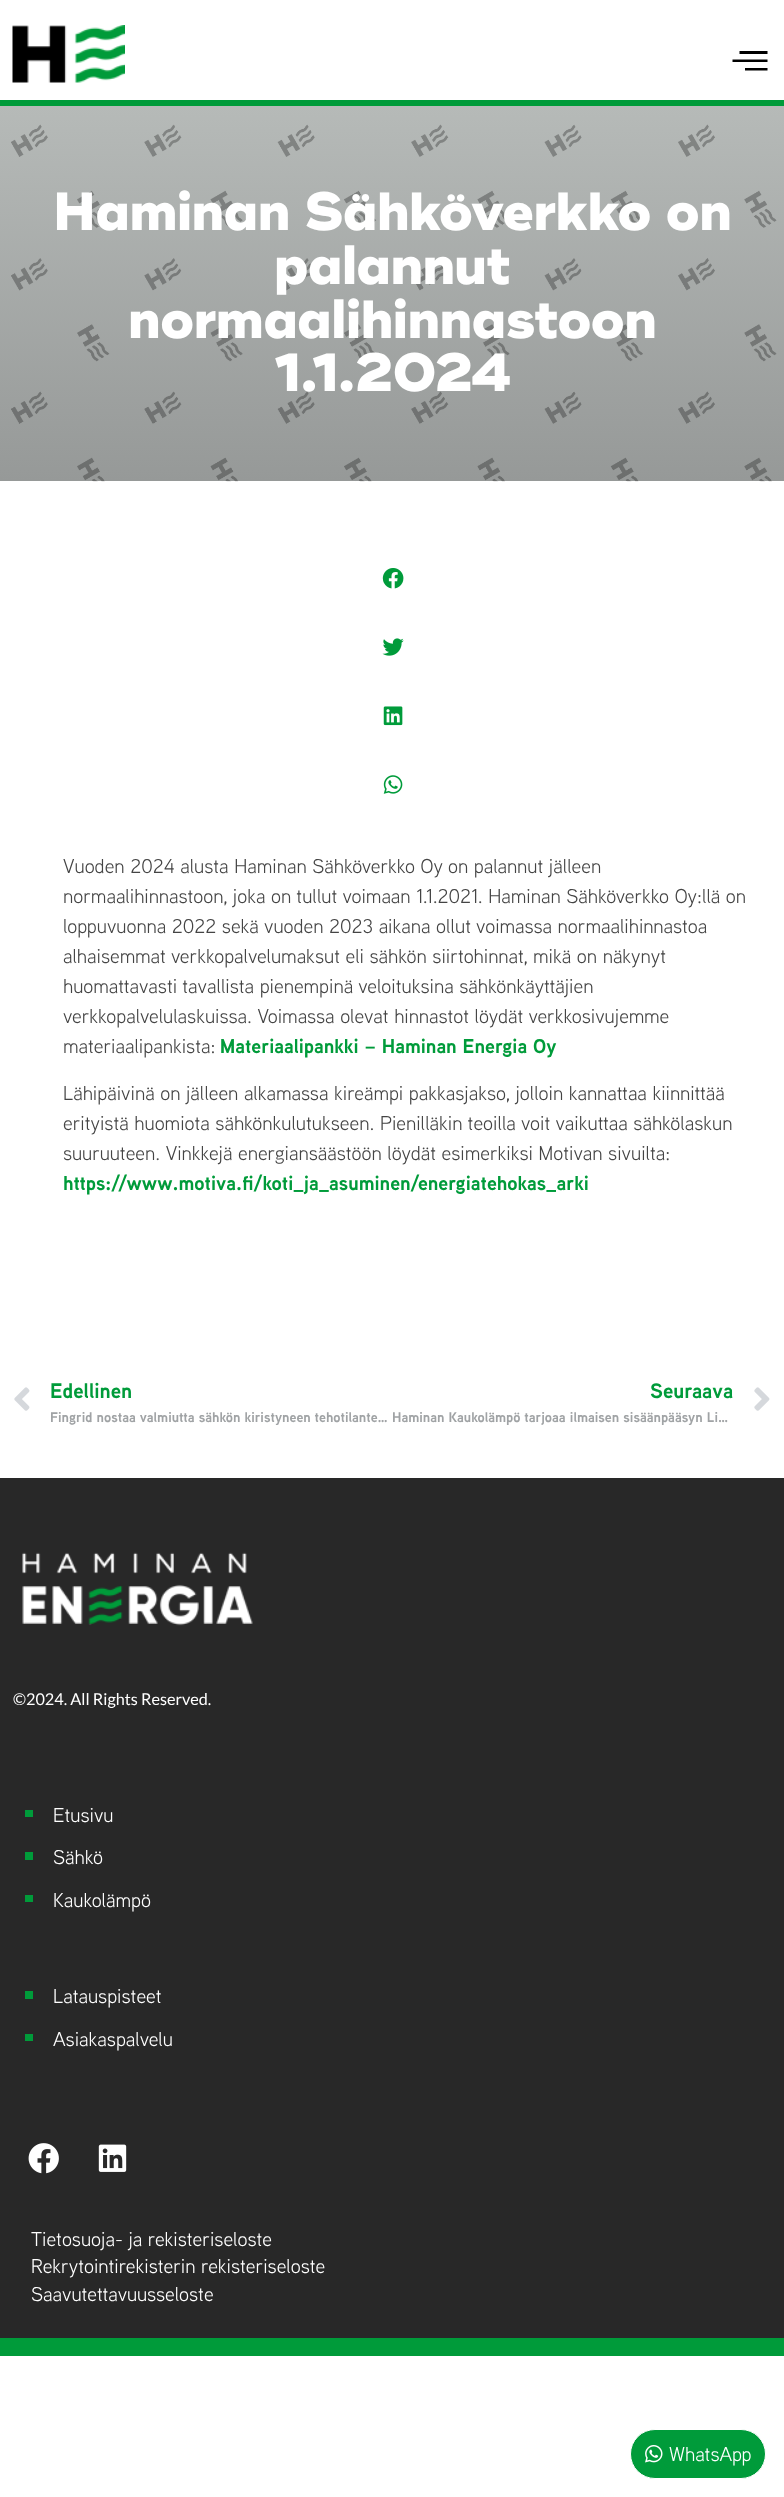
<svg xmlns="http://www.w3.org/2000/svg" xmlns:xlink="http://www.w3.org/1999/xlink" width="784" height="2497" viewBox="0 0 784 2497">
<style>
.cls-1{font:800 53.75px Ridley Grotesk;letter-spacing:-0.4px;fill:#ffffff}
.cls-2{font:20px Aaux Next;fill:#444444}
.cls-3{font:bold 20px Aaux Next;fill:#009b3a}
.cls-4{font:bold 21px Aaux Next;fill:#009b3a}
.cls-5{font:bold 14px Aaux Next;fill:#a0a3a5}
.cls-6{font:16.25px Lato;fill:#ffffff}
.cls-7{font:20px Aaux Next;fill:#ffffff}
</style>
<defs>
<linearGradient id="g1" gradientUnits="userSpaceOnUse" x1="393" y1="106" x2="393" y2="481"><stop offset="0" stop-color="#b6bab8"/><stop offset="1" stop-color="#969998"/></linearGradient>
<clipPath id="clip1"><rect x="393" y="1406" width="341" height="22"/></clipPath>
</defs>
<rect width="100%" height="100%" fill="#ffffff"/>
<rect fill="#009b3a" x="0" y="100" width="784" height="6"/>
<image xlink:href="image0.png" x="12" y="25" width="113" height="58"/>
<path fill="#000000" d="M732.5 62H767.5V59.5H732.5ZM745 70.5H767.5V68H745ZM739.5 51V54H767.5V51Z"/>
<rect fill="url(#g1)" x="0" y="106" width="784" height="375"/>
<image xlink:href="image1.png" x="11" y="124" width="766" height="358"/>
<image xlink:href="image2.png" x="382" y="568" width="22" height="21"/>
<image xlink:href="image3.png" x="382" y="638" width="22" height="18"/>
<image xlink:href="image4.png" x="383" y="706" width="20" height="20"/>
<image xlink:href="image5.png" x="383" y="775" width="20" height="19"/>
<image xlink:href="image6.png" x="14" y="1387" width="16" height="24"/>
<image xlink:href="image7.png" x="754" y="1387" width="16" height="24"/>
<rect fill="#282828" x="0" y="1478" width="784" height="860"/>
<rect fill="#009b3a" x="0" y="2338" width="784" height="18"/>
<image xlink:href="image8.png" x="22" y="1552" width="231" height="74"/>
<rect fill="#009b3a" x="25" y="1810" width="8" height="7"/>
<rect fill="#009b3a" x="25" y="1852" width="8" height="8"/>
<rect fill="#009b3a" x="25" y="1895" width="8" height="7"/>
<rect fill="#009b3a" x="25" y="1991" width="8" height="8"/>
<rect fill="#009b3a" x="25" y="2034" width="8" height="7"/>
<image xlink:href="image9.png" x="28" y="2143" width="31" height="31"/>
<image xlink:href="image10.png" x="98" y="2144" width="29" height="28"/>
<rect fill="#009b3a" stroke="#ffffff" x="630.5" y="2429.5" width="135" height="49" rx="24.5"/>
<image xlink:href="image11.png" x="645" y="2445" width="18" height="18"/>
<text class="cls-1" x="53" y="230">Haminan Sähköverkko on</text>
<text class="cls-1" x="274" y="284">palannut</text>
<text class="cls-1" x="128" y="338">normaalihinnastoon</text>
<text class="cls-1" x="274" y="391">1.1.2024</text>
<text class="cls-2"><tspan x="63" y="873">Vuoden 2024 alusta Haminan Sähköverkko Oy on palannut jälleen</tspan><tspan x="63" y="903">normaalihinnastoon, joka on tullut voimaan 1.1.2021. Haminan Sähköverkko Oy:llä on</tspan><tspan x="63" y="933">loppuvuonna 2022 sekä vuoden 2023 aikana ollut voimassa normaalihinnastoa</tspan><tspan x="63" y="963">alhaisemmat verkkopalvelumaksut eli sähkön siirtohinnat, mikä on näkynyt</tspan><tspan x="63" y="993">huomattavasti tavallista pienempinä veloituksina sähkönkäyttäjien</tspan><tspan x="63" y="1023">verkkopalvelulaskuissa. Voimassa olevat hinnastot löydät verkkosivujemme</tspan><tspan x="63" y="1053">materiaalipankista:</tspan></text>
<text class="cls-3" x="220" y="1053">Materiaalipankki – Haminan Energia Oy</text>
<text class="cls-2"><tspan x="63" y="1100">Lähipäivinä on jälleen alkamassa kireämpi pakkasjakso, jolloin kannattaa kiinnittää</tspan><tspan x="63" y="1130">erityistä huomiota sähkönkulutukseen. Pienilläkin teoilla voit vaikuttaa sähkölaskun</tspan><tspan x="63" y="1160">suuruuteen. Vinkkejä energiansäästöön löydät esimerkiksi Motivan sivuilta:</tspan></text>
<text class="cls-3" x="63" y="1190">https://www.motiva.fi/koti_ja_asuminen/energiatehokas_arki</text>
<text class="cls-4" x="50" y="1398">Edellinen</text>
<text class="cls-5" x="50" y="1422">Fingrid nostaa valmiutta sähkön kiristyneen tehotilante…</text>
<text class="cls-4" x="650" y="1398">Seuraava</text>
<g clip-path="url(#clip1)">
<text class="cls-5" x="392" y="1422">Haminan Kaukolämpö tarjoaa ilmaisen sisäänpääsyn Li…</text>
</g>
<text class="cls-6" x="13" y="1705">©2024. All Rights Reserved.</text>
<text class="cls-7" x="53" y="1822">Etusivu</text>
<text class="cls-7" x="53" y="1864">Sähkö</text>
<text class="cls-7" x="53" y="1907">Kaukolämpö</text>
<text class="cls-7" x="53" y="2003">Latauspisteet</text>
<text class="cls-7" x="53" y="2046">Asiakaspalvelu</text>
<text class="cls-7"><tspan x="31" y="2246">Tietosuoja- ja rekisteriseloste</tspan><tspan x="31" y="2273">Rekrytointirekisterin rekisteriseloste</tspan><tspan x="31" y="2301">Saavutettavuusseloste</tspan></text>
<text class="cls-7" x="669" y="2461">WhatsApp</text>
</svg>
